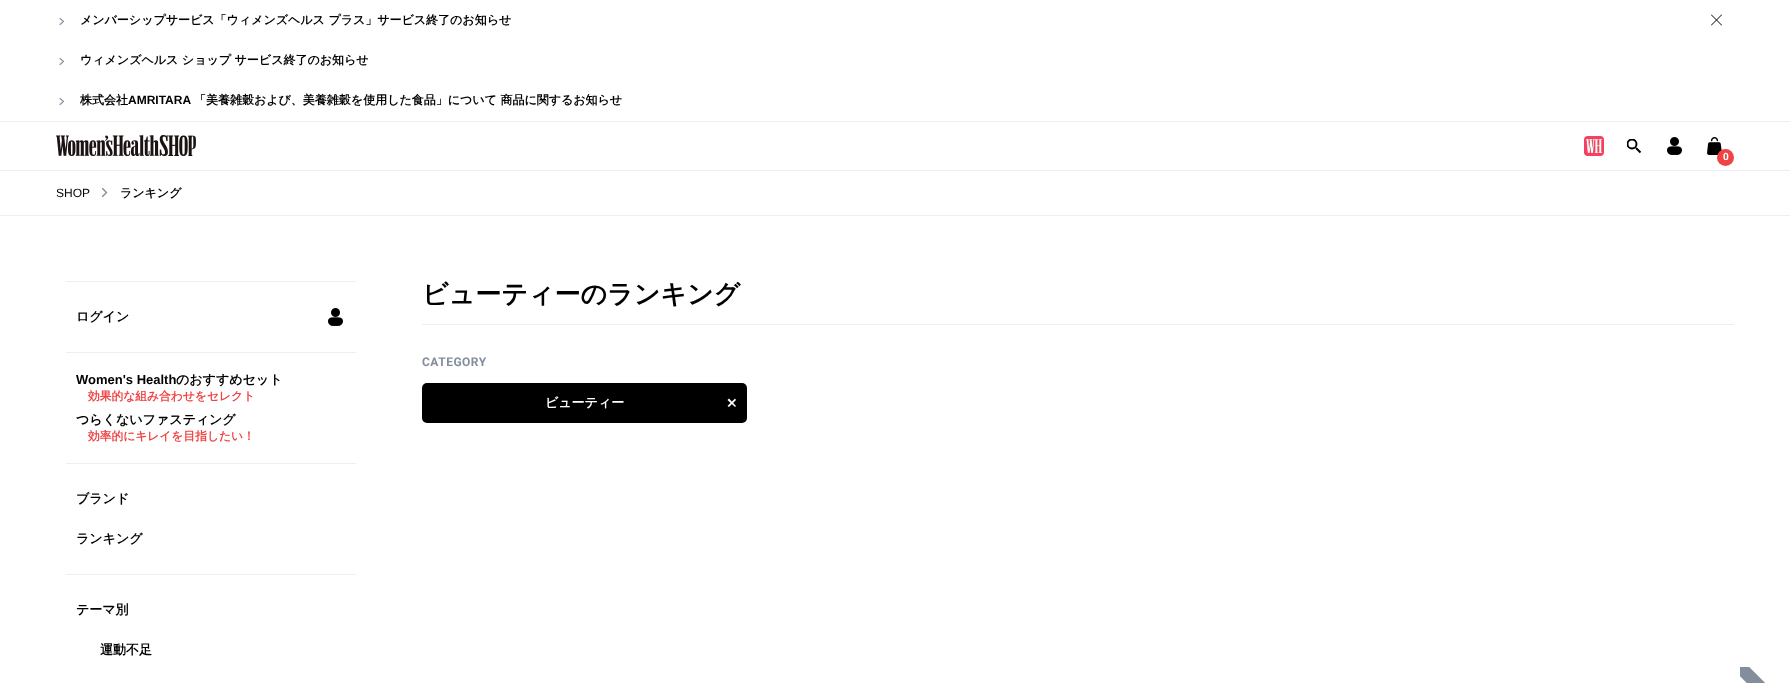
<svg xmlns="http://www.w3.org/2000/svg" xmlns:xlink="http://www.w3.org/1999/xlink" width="1790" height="683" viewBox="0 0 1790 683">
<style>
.cls-1{font:bold 12px WenQuanYi Zen Hei;fill:#000000}
.cls-2{font:bold 12px Liberation Sans;fill:#000000}
.cls-3{font:bold 10px Roboto;fill:#ffffff}
.cls-4{font:12px Liberation Sans;fill:#000000}
.cls-5{font:bold 13px WenQuanYi Zen Hei;fill:#000000}
.cls-6{font:bold 13px Liberation Sans;fill:#000000}
.cls-7{font:bold 11.75px WenQuanYi Zen Hei;fill:#ef4444}
.cls-8{font:bold 26px WenQuanYi Zen Hei;fill:#000000}
.cls-9{font:bold 12px Roboto;letter-spacing:0.5px;fill:#838d9d}
.cls-10{font:bold 13px WenQuanYi Zen Hei;fill:#ffffff}
</style>
<defs>
<clipPath id="clip1"><rect x="1627" y="139" width="14" height="14"/></clipPath>
<clipPath id="clip2"><rect x="102" y="188" width="6" height="9"/></clipPath>
<clipPath id="clip3"><rect x="1740" y="667" width="50" height="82"/></clipPath>
</defs>
<rect width="100%" height="100%" fill="#ffffff"/>
<path fill="none" stroke="#838d9c" stroke-width="1.1" stroke-linecap="round" d="M60 24.5L63.5 21.5L60 18.5"/>
<path fill="#000000" d="M1711 25L1721.5 14.5L1722 15L1711.5 25.5Z"/>
<path fill="#000000" d="M1711.5 14.5L1722 25L1721.5 25.5L1711 15Z"/>
<path fill="none" stroke="#838d9c" stroke-width="1.1" stroke-linecap="round" d="M60 64.5L63.5 61.5L60 58.5"/>
<path fill="none" stroke="#838d9c" stroke-width="1.1" stroke-linecap="round" d="M60 104.5L63.5 101.5L60 98.5"/>
<rect fill="#ecf0f2" x="0" y="121" width="1790" height="1"/>
<rect fill="#ecf0f2" x="0" y="170" width="1790" height="1"/>
<image xlink:href="image0.png" x="56" y="135" width="140" height="21"/>
<image xlink:href="image1.png" x="1584" y="136" width="20" height="20"/>
<g clip-path="url(#clip1)">
<circle fill="none" stroke="#000000" stroke-width="1.9" cx="1632" cy="144" r="4.5"/>
</g>
<path fill="none" stroke="#000000" stroke-width="1.9" d="M1640.5 152.5L1636 148"/>
<image xlink:href="image2.png" x="1667" y="137" width="15" height="18"/>
<image xlink:href="image3.png" x="1707" y="137" width="15" height="18"/>
<circle fill="#ef4444" cx="1725.5" cy="157.5" r="8.5"/>
<rect fill="#ecf0f2" x="0" y="215" width="1790" height="1"/>
<g clip-path="url(#clip2)">
<path fill="none" stroke="#838d9c" stroke-width="1.4" stroke-linecap="round" d="M102.5 196.5L106.5 192.5L102.5 188.5"/>
</g>
<rect fill="#ecf0f2" x="66" y="281" width="290" height="1"/>
<image xlink:href="image2.png" x="328" y="308" width="15" height="18"/>
<rect fill="#ecf0f2" x="66" y="352" width="290" height="1"/>
<rect fill="#ecf0f2" x="66" y="463" width="290" height="1"/>
<rect fill="#ecf0f2" x="66" y="574" width="290" height="1"/>
<rect fill="#ecf0f2" x="422" y="324" width="1312" height="1"/>
<rect fill="#000000" x="422" y="383" width="325" height="40" rx="5"/>
<path fill="#ffffff" d="M729 398.5L736 406L735 407L727.5 400Z"/>
<path fill="#ffffff" d="M727.5 406L735 398.5L736 400L729 407Z"/>
<g clip-path="url(#clip3)">
<path fill="none" stroke="#838d9c" stroke-width="13" stroke-linecap="round" d="M1744.5 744L1781 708L1744.5 671.5"/>
</g>
<text class="cls-1" x="80" y="24">メンバーシップサービス「ウィメンズヘルス プラス」サービス終了のお知らせ</text>
<text class="cls-1" x="80" y="64">ウィメンズヘルス ショップ サービス終了のお知らせ</text>
<text class="cls-1" x="80" y="104">株式会社</text>
<text class="cls-2" x="128" y="104">AMRITARA</text>
<text class="cls-1" x="194" y="104">「美養雑穀および、美養雑穀を使用した食品」について 商品に関するお知らせ</text>
<text class="cls-3" x="1723" y="160">0</text>
<text class="cls-4" x="56" y="197">SHOP</text>
<text class="cls-1" x="120" y="197">ランキング</text>
<text class="cls-5" x="76" y="321">ログイン</text>
<text class="cls-6" x="76" y="384">Women's Health</text>
<text class="cls-5" x="176" y="384">のおすすめセット</text>
<text class="cls-7" x="88" y="400">効果的な組み合わせをセレクト</text>
<text class="cls-5" x="76" y="424">つらくないファスティング</text>
<text class="cls-7" x="88" y="440">効率的にキレイを目指したい！</text>
<text class="cls-5" x="76" y="503">ブランド</text>
<text class="cls-5" x="76" y="543">ランキング</text>
<text class="cls-5" x="76" y="614">テーマ別</text>
<text class="cls-5" x="100" y="654">運動不足</text>
<text class="cls-8" x="422" y="303">ビューティーのランキング</text>
<text class="cls-9" x="422" y="366">CATEGORY</text>
<text class="cls-10" x="545" y="407">ビューティー</text>
</svg>
